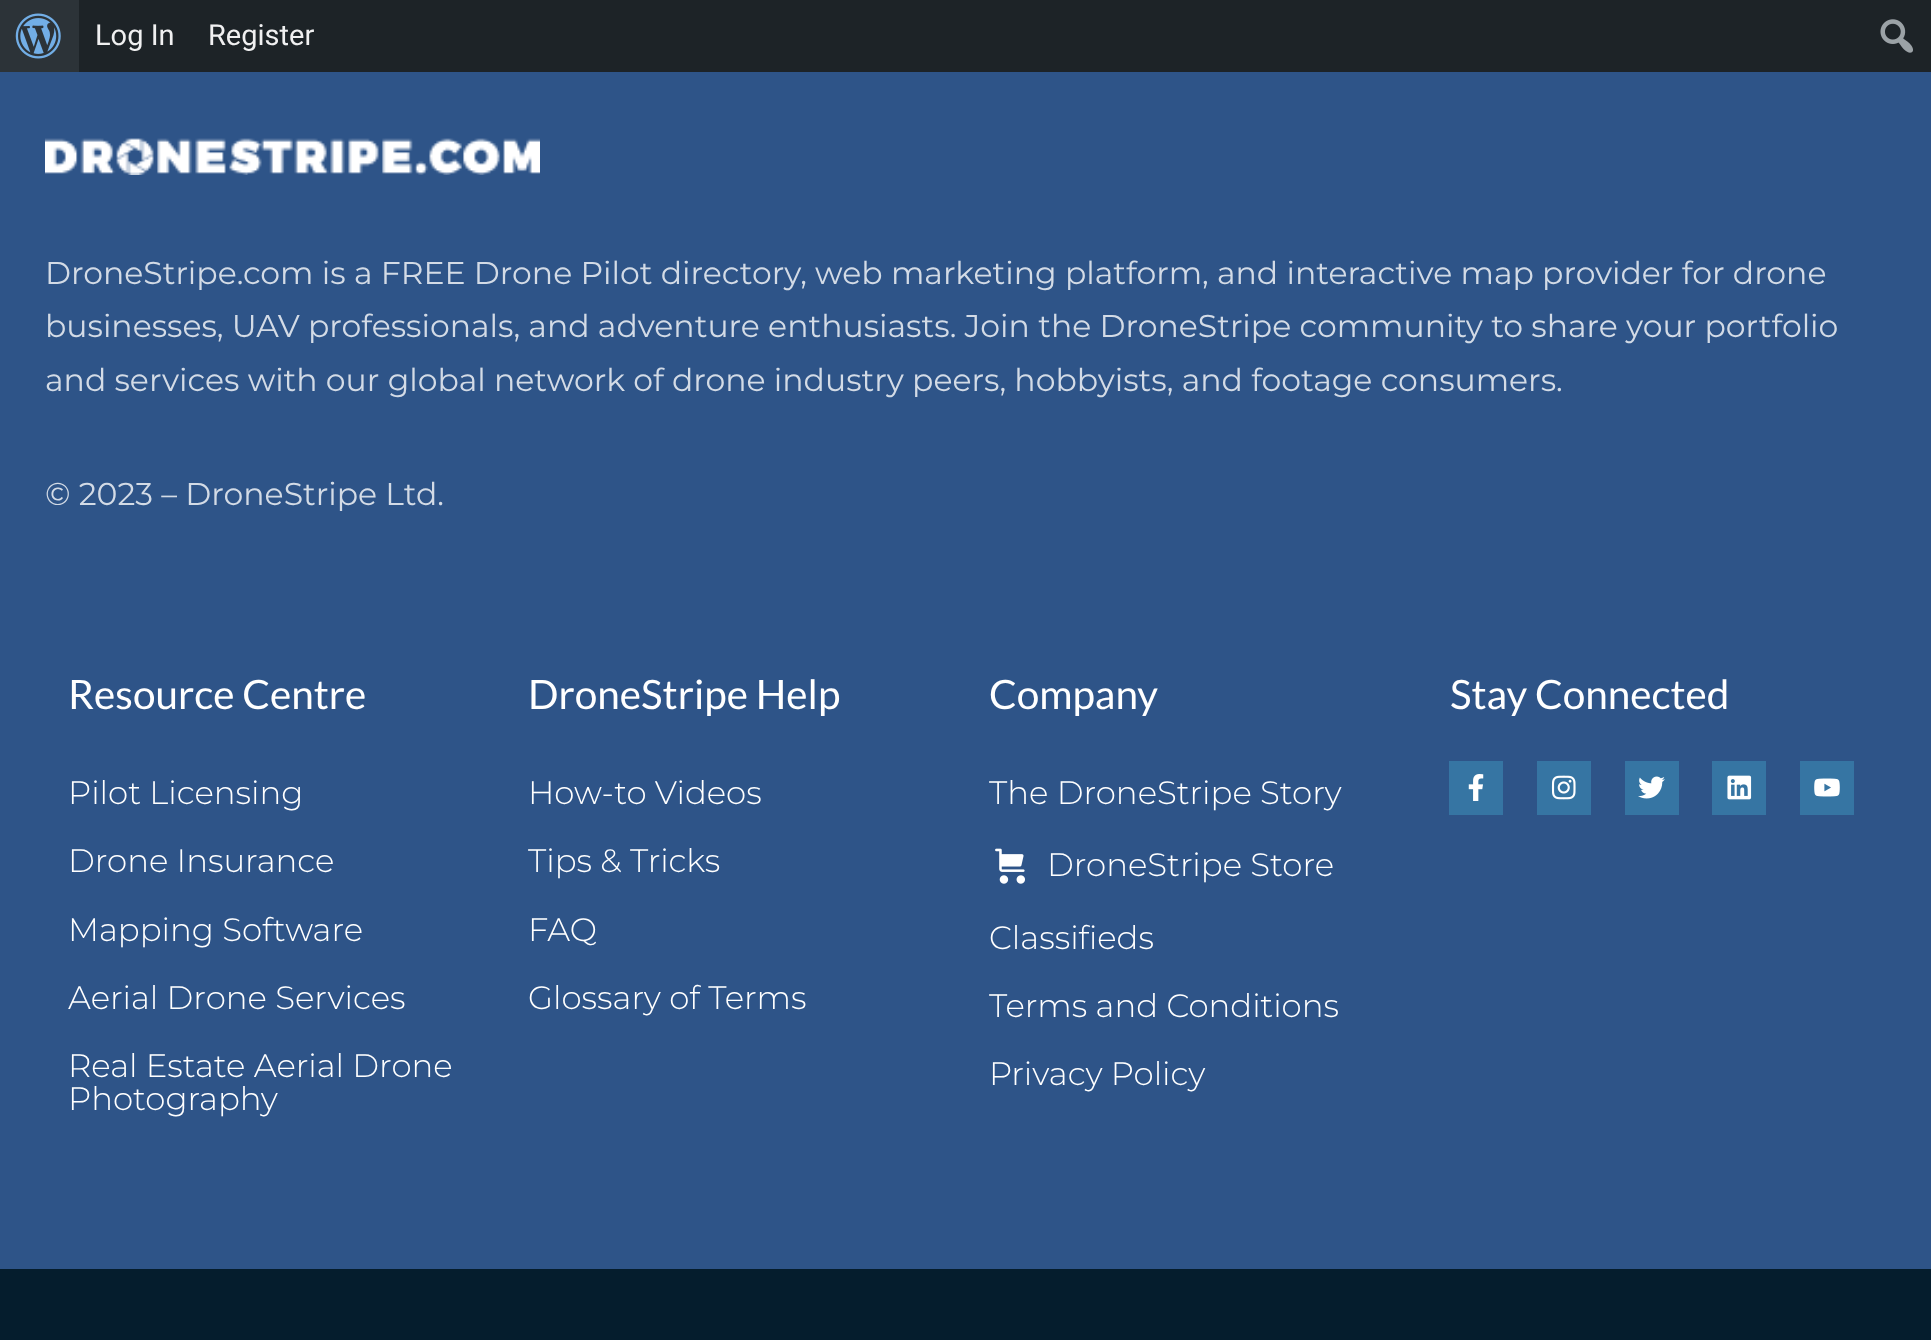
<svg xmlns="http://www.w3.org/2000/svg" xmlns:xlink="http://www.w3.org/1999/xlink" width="1931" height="1340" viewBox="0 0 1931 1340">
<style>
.cls-1{font:29px Roboto;fill:#f0f0f1}
.cls-2{font:31.5px Montserrat;fill:#d3dbe6}
.cls-3{font:40.5px Lato;fill:#ffffff}
.cls-4{font:300 32.4px Montserrat;fill:#ffffff}
</style>
<rect width="100%" height="100%" fill="#051d2d"/>
<rect fill="#1d2327" x="79" y="0" width="1852" height="72"/>
<rect fill="#2c3338" x="0" y="0" width="79" height="72"/>
<image xlink:href="image0.png" x="15" y="13" width="46" height="46"/>
<image xlink:href="image1.png" x="1880" y="19" width="33" height="34"/>
<rect fill="#2e5488" x="0" y="72" width="1931" height="1197"/>
<image xlink:href="image2.png" x="45" y="138" width="495" height="37"/>
<image xlink:href="image3.png" x="995" y="848" width="30" height="36"/>
<rect fill="#3675a3" x="1449" y="761" width="54" height="54"/>
<image xlink:href="image4.png" x="1468" y="774" width="16" height="27"/>
<rect fill="#3675a3" x="1537" y="761" width="54" height="54"/>
<image xlink:href="image5.png" x="1551" y="775" width="25" height="25"/>
<rect fill="#3675a3" x="1625" y="761" width="54" height="54"/>
<image xlink:href="image6.png" x="1638" y="776" width="27" height="23"/>
<rect fill="#3675a3" x="1712" y="761" width="54" height="54"/>
<image xlink:href="image7.png" x="1727" y="775" width="25" height="25"/>
<rect fill="#3675a3" x="1800" y="761" width="54" height="54"/>
<image xlink:href="image8.png" x="1814" y="778" width="26" height="19"/>
<text class="cls-1" x="95" y="45">Log In</text>
<text class="cls-1" x="208" y="45">Register</text>
<text class="cls-2"><tspan x="45" y="284">DroneStripe.com is a FREE Drone Pilot directory, web marketing platform, and interactive map provider for drone</tspan><tspan x="45" y="337">businesses, UAV professionals, and adventure enthusiasts. Join the DroneStripe community to share your portfolio</tspan><tspan x="45" y="391">and services with our global network of drone industry peers, hobbyists, and footage consumers.</tspan></text>
<text class="cls-2" x="45" y="505">© 2023 – DroneStripe Ltd.</text>
<text class="cls-3" x="68" y="709">Resource Centre</text>
<text class="cls-4" x="68" y="804">Pilot Licensing</text>
<text class="cls-4" x="68" y="872">Drone Insurance</text>
<text class="cls-4" x="68" y="941">Mapping Software</text>
<text class="cls-4" x="68" y="1009">Aerial Drone Services</text>
<text class="cls-4"><tspan x="68" y="1077">Real Estate Aerial Drone</tspan><tspan x="68" y="1110">Photography</tspan></text>
<text class="cls-3" x="528" y="709">DroneStripe Help</text>
<text class="cls-4" x="528" y="804">How-to Videos</text>
<text class="cls-4" x="528" y="872">Tips &amp; Tricks</text>
<text class="cls-4" x="528" y="941">FAQ</text>
<text class="cls-4" x="528" y="1009">Glossary of Terms</text>
<text class="cls-3" x="989" y="709">Company</text>
<text class="cls-4" x="989" y="804">The DroneStripe Story</text>
<text class="cls-4" x="1047" y="876">DroneStripe Store</text>
<text class="cls-4" x="989" y="949">Classifieds</text>
<text class="cls-4" x="989" y="1017">Terms and Conditions</text>
<text class="cls-4" x="989" y="1085">Privacy Policy</text>
<text class="cls-3" x="1450" y="709">Stay Connected</text>
</svg>
